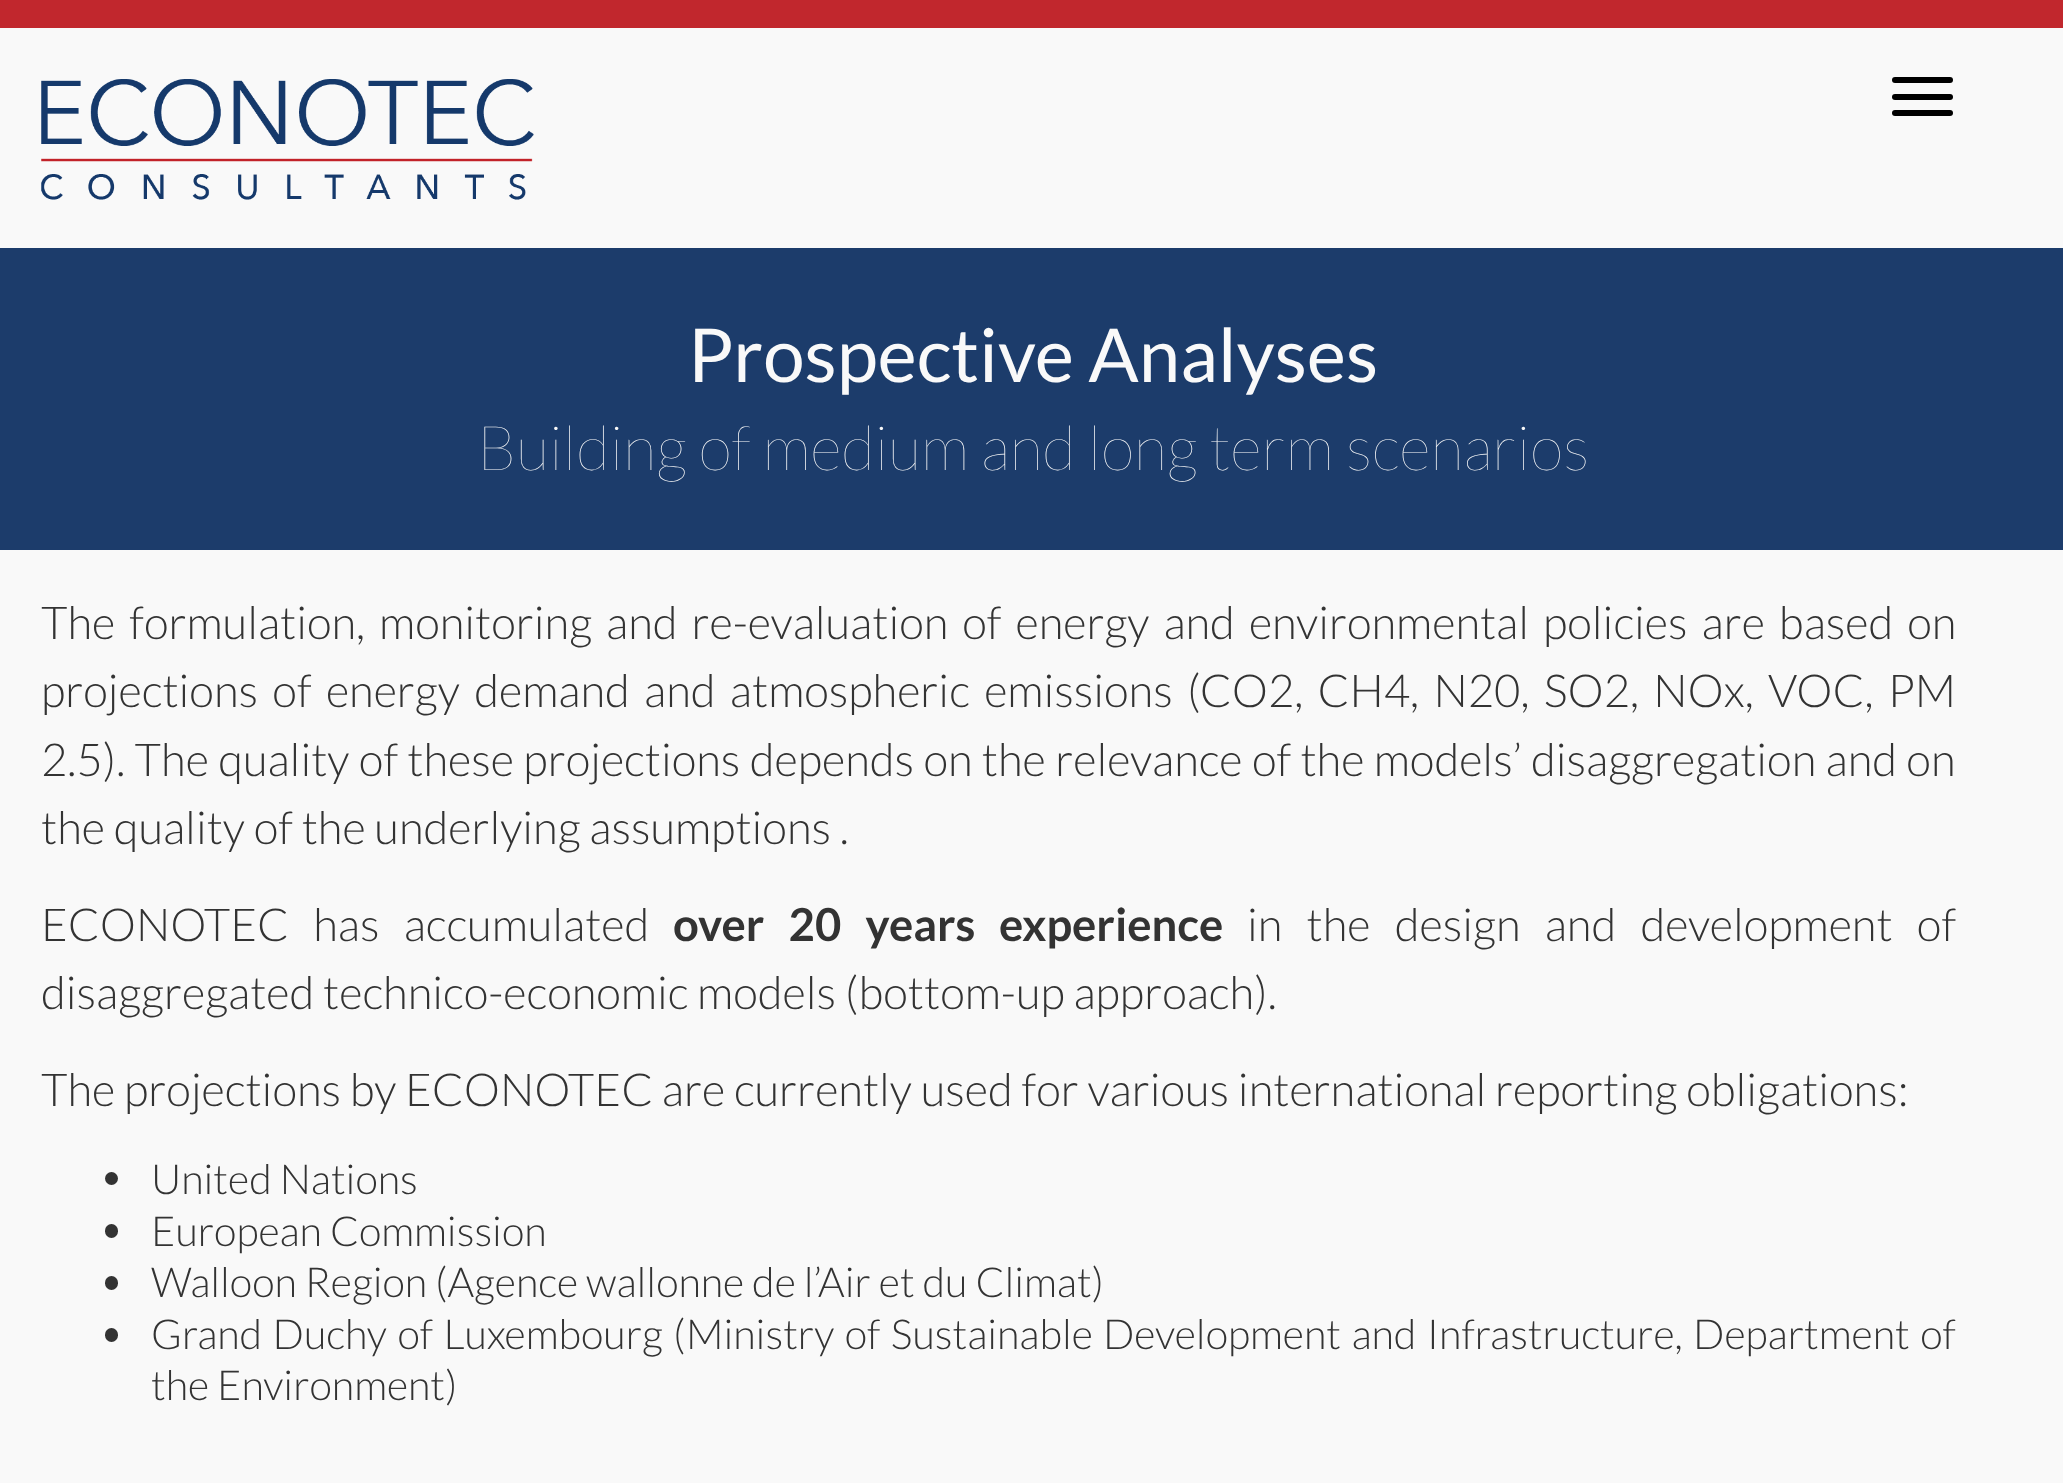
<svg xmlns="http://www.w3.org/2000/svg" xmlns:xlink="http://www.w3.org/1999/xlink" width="2063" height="1483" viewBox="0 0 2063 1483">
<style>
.cls-1{font:74.25px Lato;fill:#f9f9f9}
.cls-2{font:100 61.9px Lato;fill:#f9f9f9}
.cls-3{font:300 45.4px Lato;fill:#333333}
.cls-4{font:bold 45.4px Lato;fill:#333333}
.cls-5{font:300 41.25px Lato;fill:#333333}
</style>
<rect width="100%" height="100%" fill="#f9f9f9"/>
<rect fill="#c1272d" x="0" y="0" width="2063" height="28"/>
<image xlink:href="image0.png" x="41" y="79" width="493" height="121"/>
<rect fill="#000000" x="1892" y="77" width="61" height="6" rx="3"/>
<rect fill="#000000" x="1892" y="94" width="61" height="6" rx="3"/>
<rect fill="#000000" x="1892" y="110" width="61" height="6" rx="3"/>
<rect fill="#1c3c6b" x="0" y="248" width="2063" height="302"/>
<circle fill="#333333" cx="111.5" cy="1178.5" r="6.5"/>
<rect fill="#333333" x="105" y="1224" width="13" height="14" rx="6.5"/>
<rect fill="#333333" x="105" y="1276" width="13" height="14" rx="6.5"/>
<rect fill="#333333" x="105" y="1328" width="13" height="14" rx="6.5"/>
<text class="cls-1" x="688" y="382">Prospective Analyses</text>
<text class="cls-2" x="477" y="470">Building of medium and long term scenarios</text>
<text class="cls-3"><tspan x="41" y="639" word-spacing="5.25">The formulation, monitoring and re-evaluation of energy and environmental policies are based on</tspan><tspan x="41" y="707" word-spacing="5.6">projections of energy demand and atmospheric emissions (CO2, CH4, N20, SO2, NOx, VOC, PM</tspan><tspan x="41" y="776" word-spacing="0.6">2.5). The quality of these projections depends on the relevance of the models’ disaggregation and on</tspan><tspan x="41" y="844">the quality of the underlying assumptions .</tspan></text>
<text class="cls-3" x="41" y="941" word-spacing="15.5">ECONOTEC has accumulated</text>
<text class="cls-4" x="673" y="941" word-spacing="15.5">over 20 years</text>
<text class="cls-4" x="999" y="941">experience</text>
<text class="cls-3" x="1247" y="941" word-spacing="15.5">in the design and development of</text>
<text class="cls-3" x="41" y="1009">disaggregated technico-economic models (bottom-up approach).</text>
<text class="cls-3" x="41" y="1106">The projections by ECONOTEC are currently used for various international reporting obligations:</text>
<text class="cls-5"><tspan x="151" y="1194">United Nations</tspan><tspan x="151" y="1246">European Commission</tspan><tspan x="151" y="1297">Walloon Region (Agence wallonne de l’Air et du Climat)</tspan><tspan x="151" y="1349" word-spacing="2.5">Grand Duchy of Luxembourg</tspan></text>
<text class="cls-5" x="673" y="1349">(</text>
<text class="cls-5" x="686" y="1349" word-spacing="2.5">Ministry of Sustainable</text>
<text class="cls-5" x="1103" y="1349" word-spacing="2.5">Development and Infrastructure, Department of</text>
<text class="cls-5" x="151" y="1400">the Environment)</text>
</svg>
